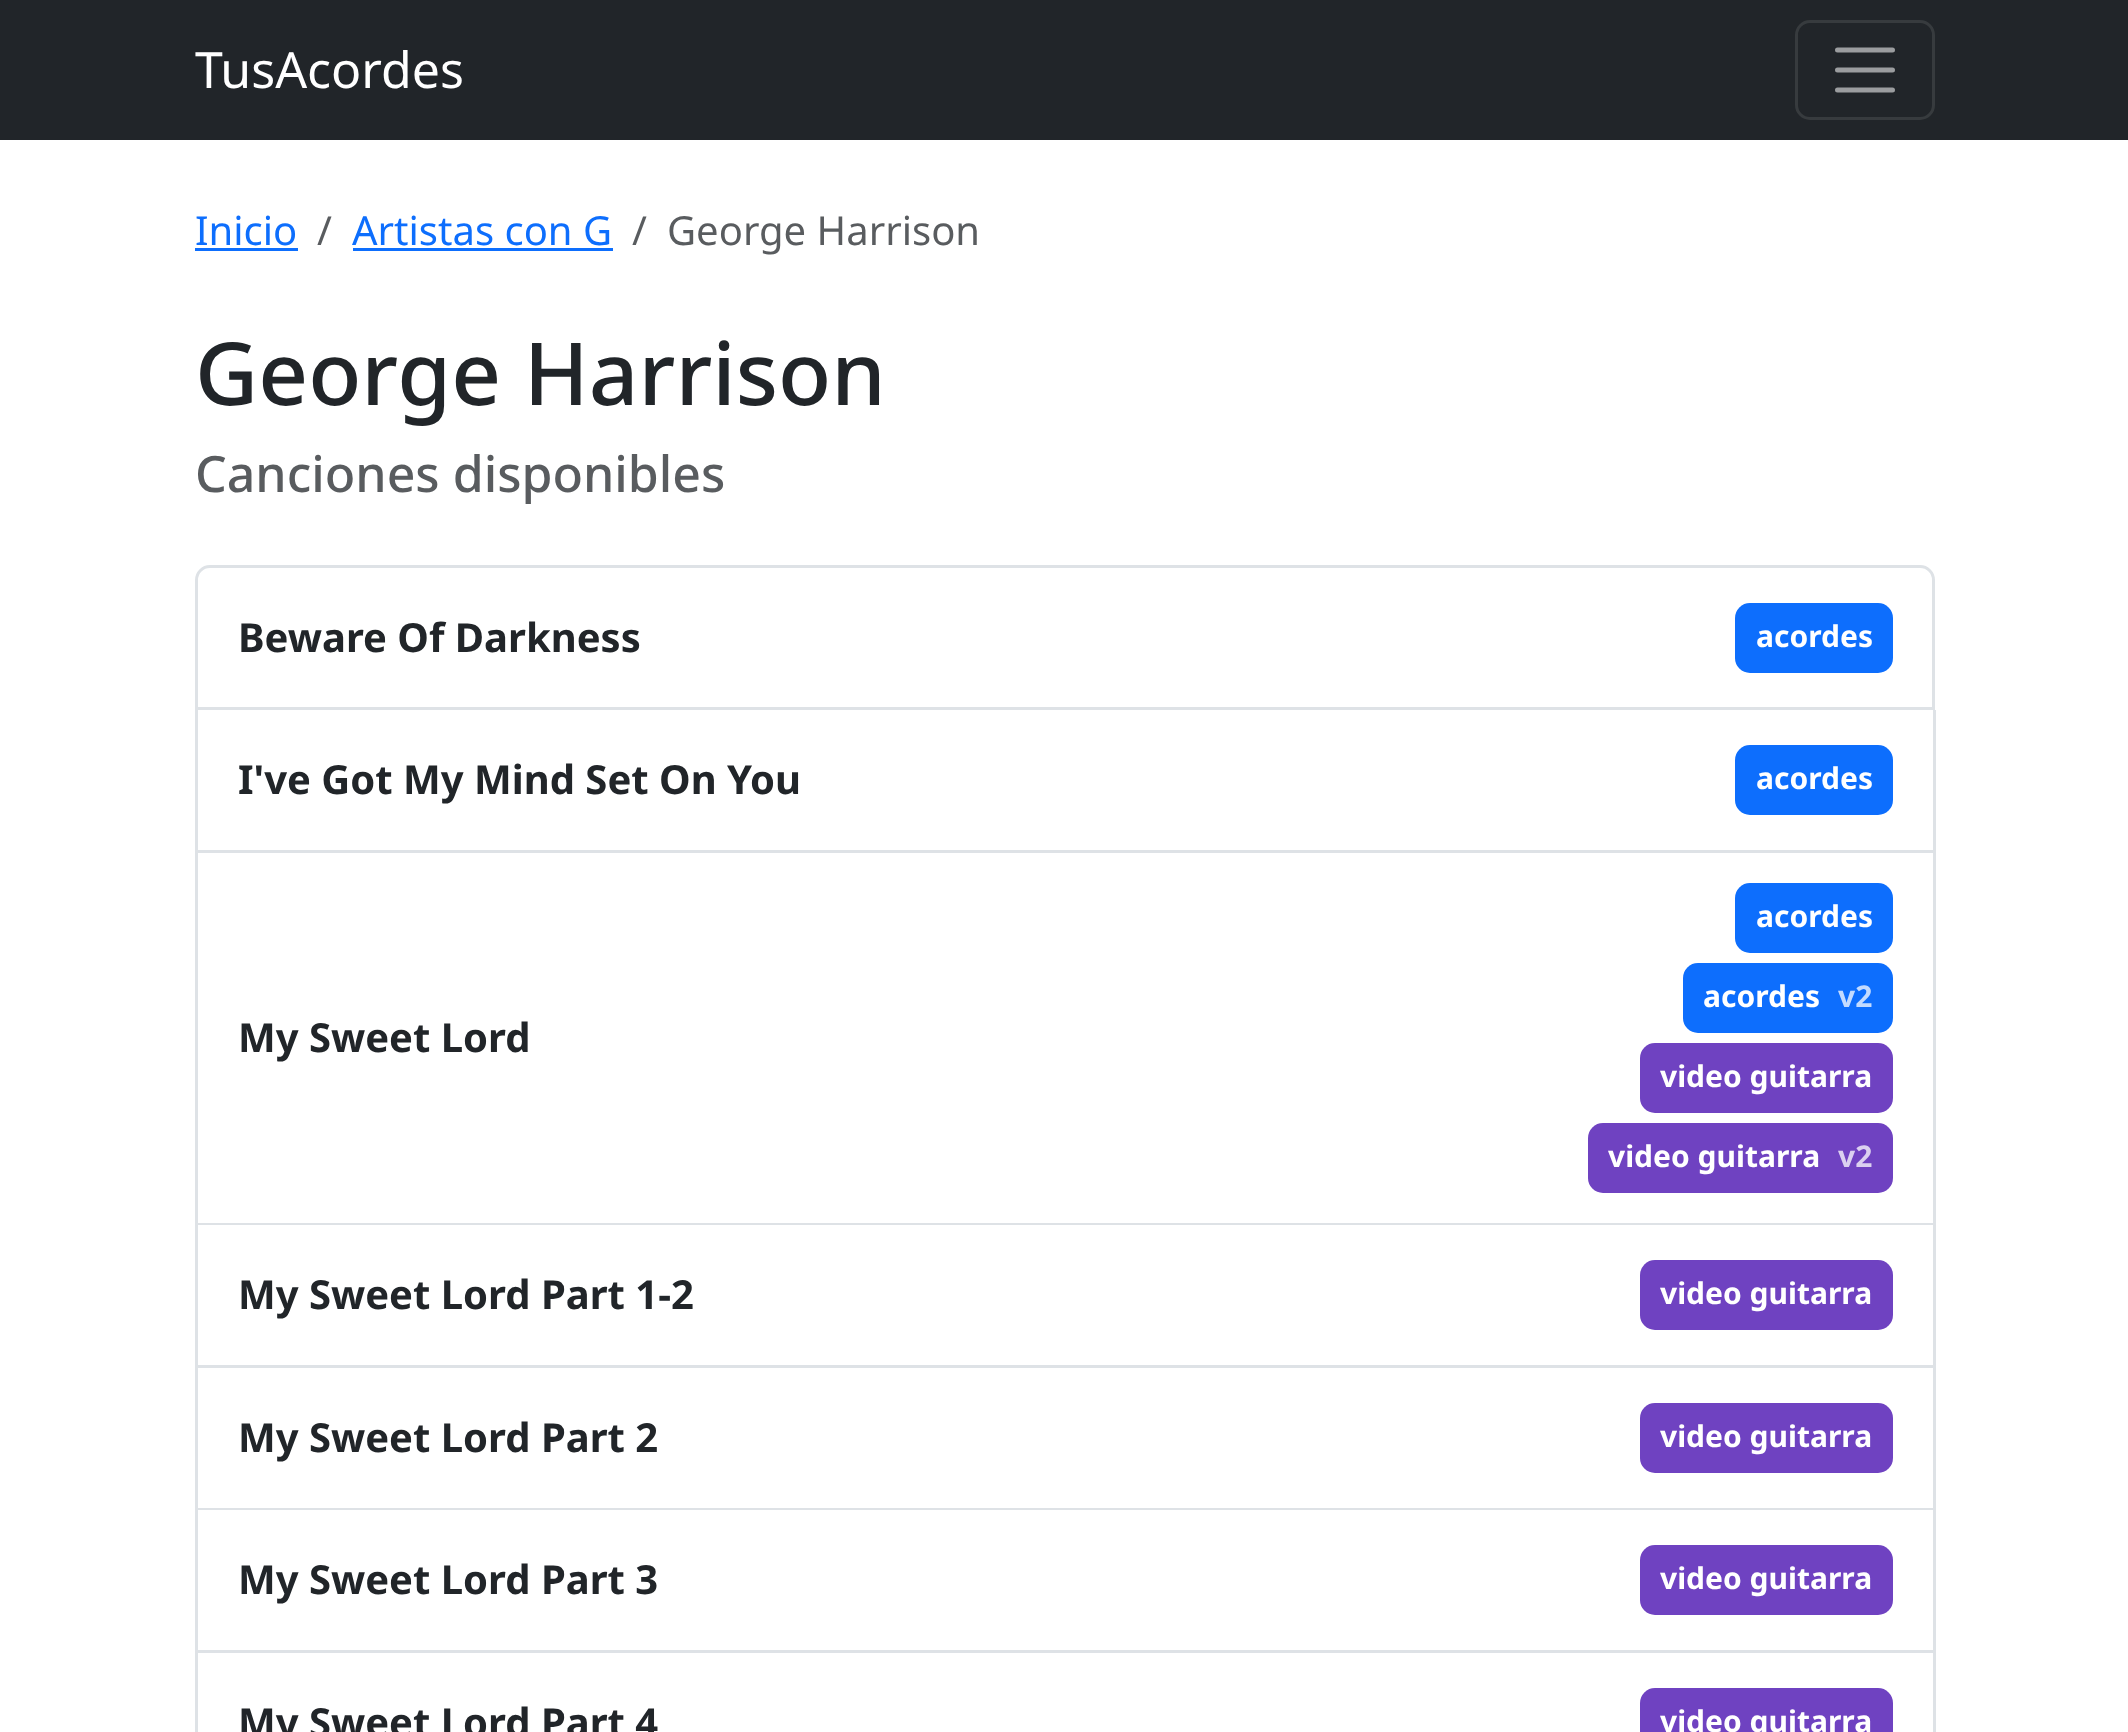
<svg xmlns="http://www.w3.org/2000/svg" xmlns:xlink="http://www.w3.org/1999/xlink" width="2128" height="1732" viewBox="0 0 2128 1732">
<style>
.cls-1{font:50px Noto Sans;fill:#ffffff}
.cls-2{font:40px Noto Sans;fill:#0d6efd}
.cls-3{font:40px Noto Sans;fill:#595c5f}
.cls-4{font:500 87px Noto Sans;fill:#212529}
.cls-5{font:500 50px Noto Sans;fill:#595c5f}
.cls-6{font:bold 40px Noto Sans;fill:#212529}
.cls-7{font:bold 30px Noto Sans;fill:#ffffff}
.cls-8{font:bold 30px Noto Sans;fill:#c3dbff}
.cls-9{font:bold 30px Noto Sans;fill:#dbd0f0}
</style>
<rect width="100%" height="100%" fill="#ffffff"/>
<rect fill="#212529" x="0" y="0" width="2128" height="140"/>
<rect fill="none" stroke="#373b3e" stroke-width="3" x="1796.5" y="21.5" width="137" height="97" rx="13.5"/>
<path fill="none" stroke="#9b9d9f" stroke-width="5" stroke-linecap="round" d="M1837.5 50H1892.5M1837.5 70H1892.5M1837.5 90H1892.5"/>
<rect fill="#0d6efd" x="195" y="248" width="103" height="3"/>
<rect fill="#0d6efd" x="353" y="248" width="260" height="3"/>
<path fill="none" stroke="#dee2e6" stroke-width="3" d="M210 566.5H1920C1927.5 566.5 1933.5 572.5 1933.5 580V708.5H196.5V580C196.5 572.5 202.5 566.5 210 566.5Z"/>
<rect fill="#0d6efd" x="1735" y="603" width="158" height="70" rx="15"/>
<rect fill="#dee2e6" x="1933" y="710" width="3" height="1022"/>
<rect fill="#dee2e6" x="195" y="850" width="1740" height="3"/>
<rect fill="#dee2e6" x="195" y="710" width="3" height="143"/>
<rect fill="#0d6efd" x="1735" y="745" width="158" height="70" rx="15"/>
<rect fill="#dee2e6" x="195" y="1223" width="1740" height="2"/>
<rect fill="#dee2e6" x="195" y="853" width="3" height="372"/>
<rect fill="#0d6efd" x="1735" y="883" width="158" height="70" rx="15"/>
<rect fill="#0d6efd" x="1683" y="963" width="210" height="70" rx="15"/>
<rect fill="#6f42c1" x="1640" y="1043" width="253" height="70" rx="15"/>
<rect fill="#6f42c1" x="1588" y="1123" width="305" height="70" rx="15"/>
<rect fill="#dee2e6" x="195" y="1365" width="1740" height="3"/>
<rect fill="#dee2e6" x="195" y="1225" width="3" height="143"/>
<rect fill="#6f42c1" x="1640" y="1260" width="253" height="70" rx="15"/>
<rect fill="#dee2e6" x="195" y="1508" width="1740" height="2"/>
<rect fill="#dee2e6" x="195" y="1368" width="3" height="142"/>
<rect fill="#6f42c1" x="1640" y="1403" width="253" height="70" rx="15"/>
<rect fill="#dee2e6" x="195" y="1650" width="1740" height="3"/>
<rect fill="#dee2e6" x="195" y="1510" width="3" height="222"/>
<rect fill="#6f42c1" x="1640" y="1545" width="253" height="70" rx="15"/>
<rect fill="#6f42c1" x="1640" y="1688" width="253" height="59" rx="15"/>
<text class="cls-1" x="195" y="88">TusAcordes</text>
<text class="cls-2" x="195" y="245">Inicio</text>
<text class="cls-3" x="317" y="245">/</text>
<text class="cls-2" x="352" y="245">Artistas con G</text>
<text class="cls-3" x="632" y="245">/</text>
<text class="cls-3" x="667" y="245">George Harrison</text>
<text class="cls-4" x="195" y="405">George Harrison</text>
<text class="cls-5" x="195" y="492">Canciones disponibles</text>
<text class="cls-6" x="238" y="652">Beware Of Darkness</text>
<text class="cls-7" x="1756" y="647">acordes</text>
<text class="cls-6" x="238" y="794">I've Got My Mind Set On You</text>
<text class="cls-7" x="1756" y="789">acordes</text>
<text class="cls-6" x="238" y="1052">My Sweet Lord</text>
<text class="cls-7" x="1756" y="927">acordes</text>
<text class="cls-7" x="1703" y="1007">acordes</text>
<text class="cls-8" x="1838" y="1007">v2</text>
<text class="cls-7" x="1660" y="1087">video guitarra</text>
<text class="cls-7" x="1608" y="1167">video guitarra</text>
<text class="cls-9" x="1838" y="1167">v2</text>
<text class="cls-6" x="238" y="1309">My Sweet Lord Part 1-2</text>
<text class="cls-7" x="1660" y="1304">video guitarra</text>
<text class="cls-6" x="238" y="1452">My Sweet Lord Part 2</text>
<text class="cls-7" x="1660" y="1447">video guitarra</text>
<text class="cls-6" x="238" y="1594">My Sweet Lord Part 3</text>
<text class="cls-7" x="1660" y="1589">video guitarra</text>
<text class="cls-6" x="238" y="1737">My Sweet Lord Part 4</text>
<text class="cls-7" x="1660" y="1732">video guitarra</text>
</svg>
